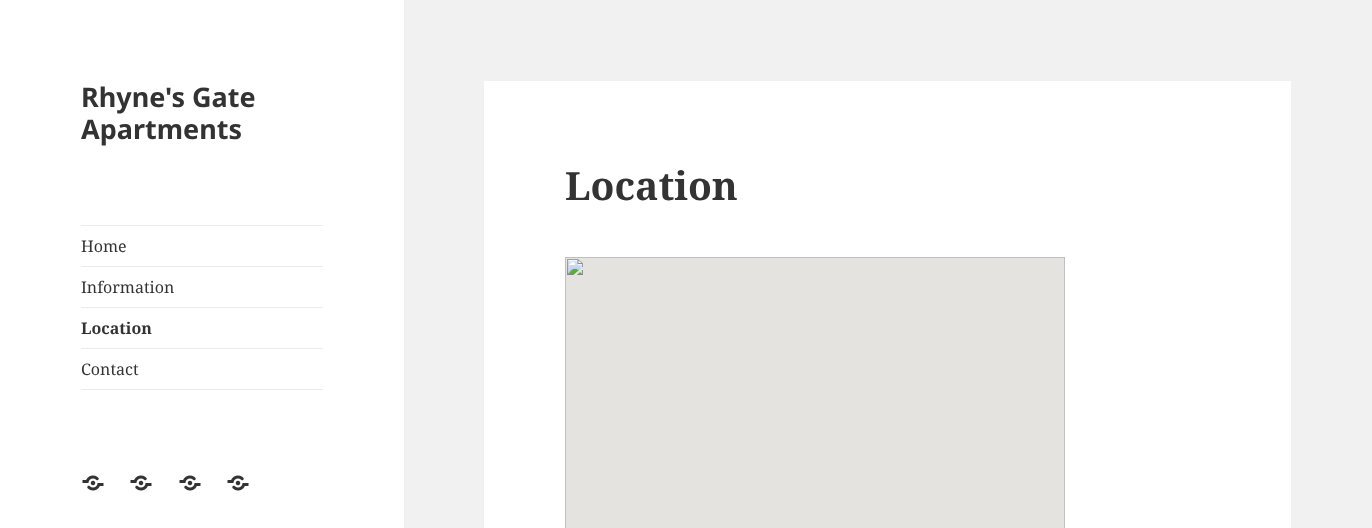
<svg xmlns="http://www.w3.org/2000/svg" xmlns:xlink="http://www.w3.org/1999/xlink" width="1372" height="528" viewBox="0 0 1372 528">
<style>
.cls-1{font:bold 27px Noto Sans;fill:#333333}
.cls-2{font:16px Noto Serif;fill:#333333}
.cls-3{font:bold 16px Noto Serif;fill:#333333}
.cls-4{font:bold 39px Noto Serif;fill:#333333}
</style>
<rect width="100%" height="100%" fill="#f1f1f1"/>
<rect fill="#ffffff" x="0" y="0" width="404" height="528"/>
<rect fill="#ebebeb" x="81" y="225" width="242" height="1"/>
<rect fill="#ebebeb" x="81" y="389" width="242" height="1"/>
<rect fill="#ebebeb" x="81" y="266" width="242" height="1"/>
<rect fill="#ebebeb" x="81" y="307" width="242" height="1"/>
<rect fill="#ebebeb" x="81" y="348" width="242" height="1"/>
<image xlink:href="image0.png" x="82" y="475" width="22" height="16"/>
<image xlink:href="image0.png" x="130" y="475" width="22" height="16"/>
<image xlink:href="image0.png" x="179" y="475" width="22" height="16"/>
<image xlink:href="image0.png" x="227" y="475" width="22" height="16"/>
<rect fill="#ffffff" x="484" y="81" width="807" height="447"/>
<image xlink:href="image1.png" x="565" y="257" width="500" height="271"/>
<text class="cls-1"><tspan x="81" y="107">Rhyne's Gate</tspan><tspan x="81" y="139">Apartments</tspan></text>
<text class="cls-2" x="81" y="252">Home</text>
<text class="cls-2" x="81" y="293">Information</text>
<text class="cls-3" x="81" y="334">Location</text>
<text class="cls-2" x="81" y="375">Contact</text>
<text class="cls-4" x="565" y="200">Location</text>
</svg>
